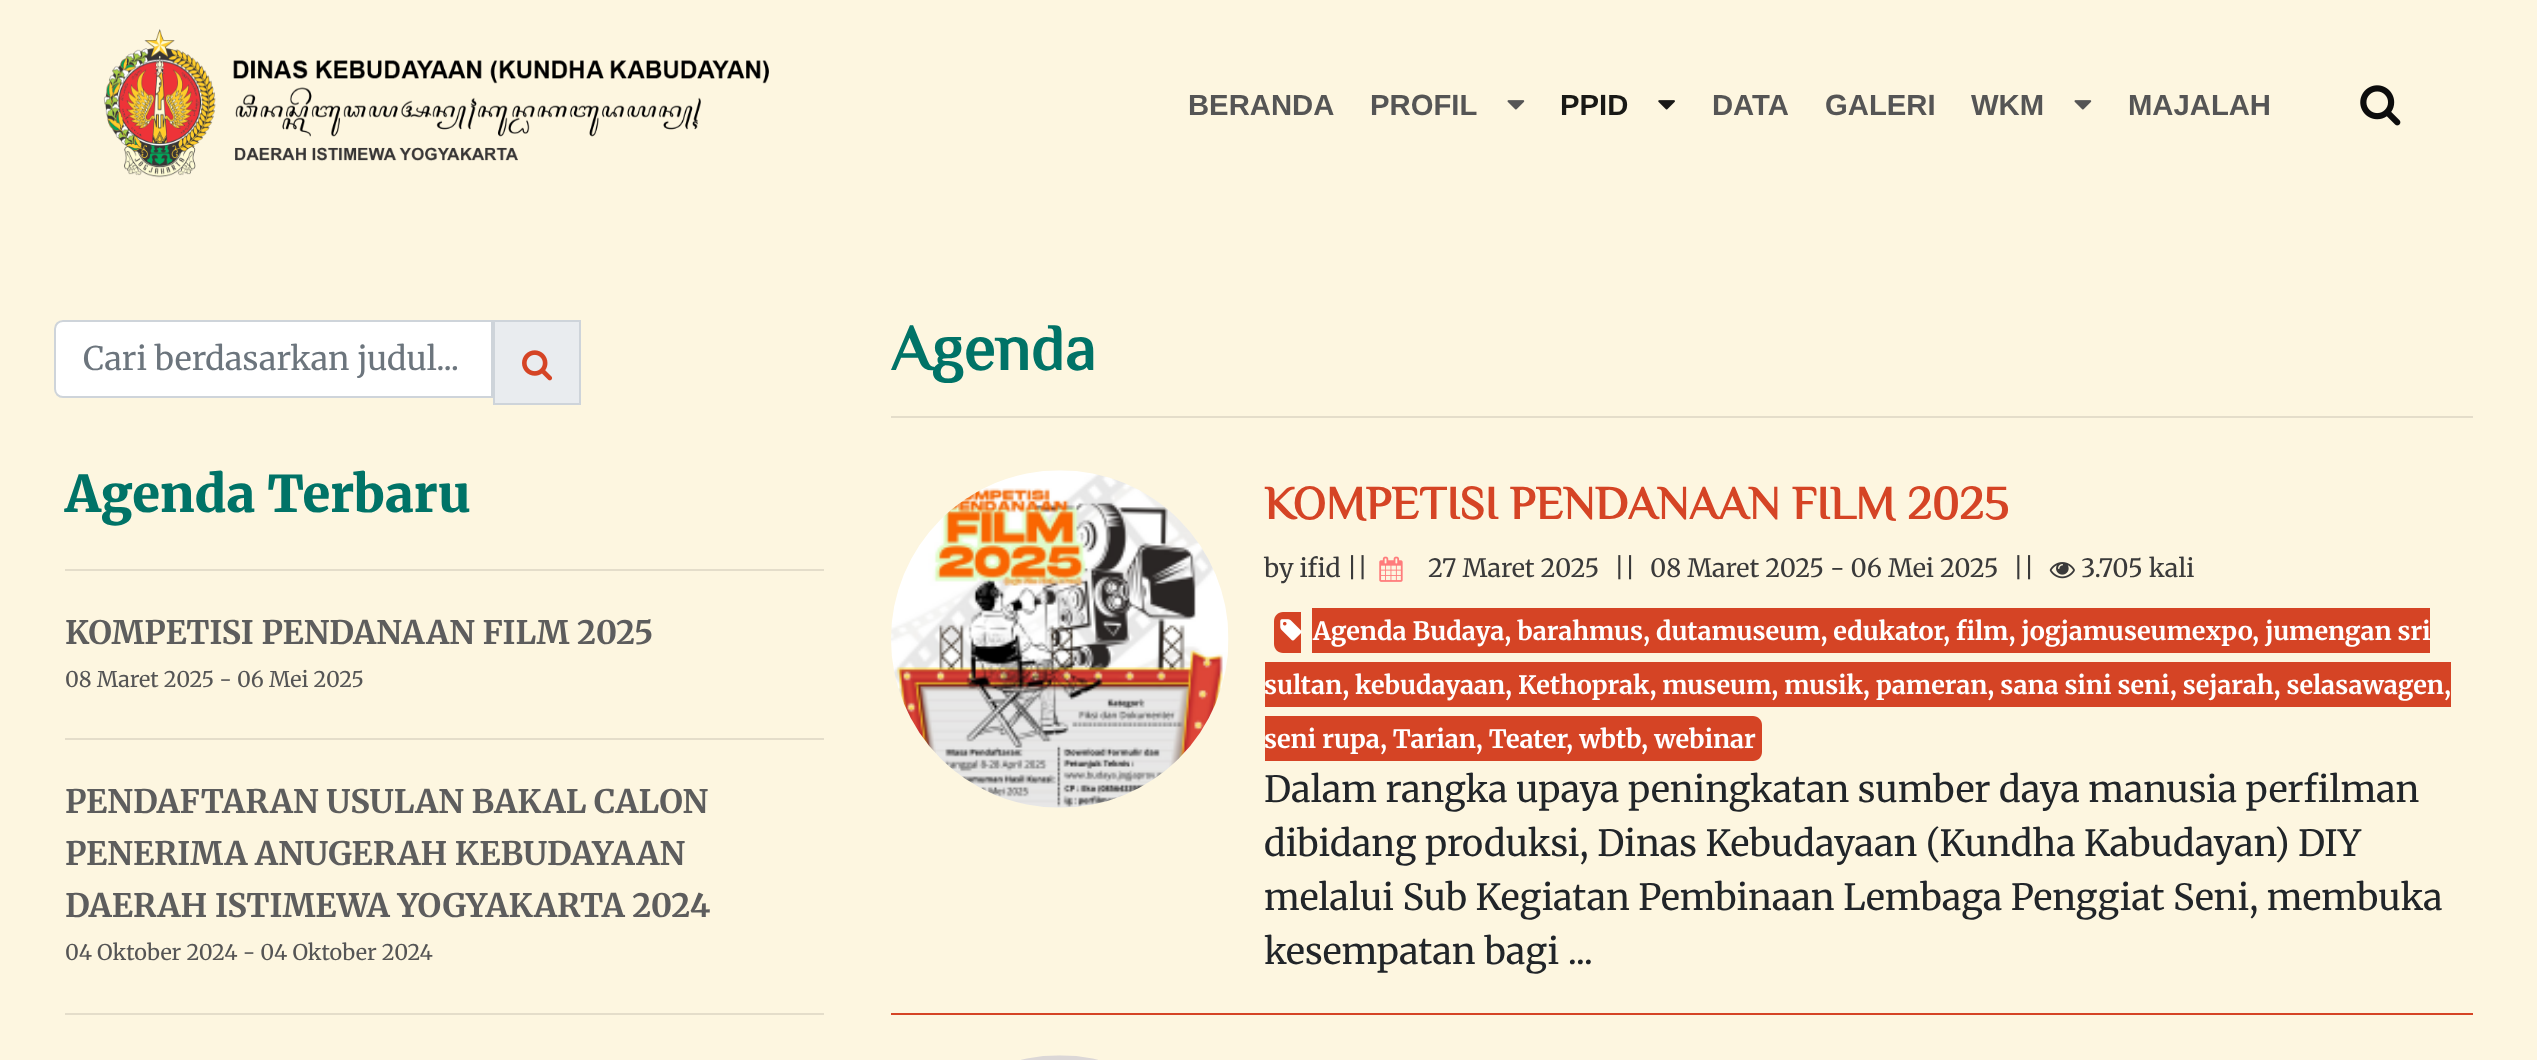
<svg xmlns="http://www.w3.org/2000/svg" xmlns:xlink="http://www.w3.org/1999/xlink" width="2537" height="1060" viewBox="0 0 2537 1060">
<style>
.cls-1{font:bold 29.25px Liberation Sans;fill:#555555}
.cls-2{font:bold 29.25px Liberation Sans;fill:#191916}
.cls-3{font:32.4px Merriweather;fill:#6c757d}
.cls-4{font:900 50.5px Merriweather;fill:#007367}
.cls-5{font:bold 32.4px Merriweather;fill:#5d5d5d}
.cls-6{font:21.6px Merriweather;fill:#555555}
.cls-7{font:bold 65px ZCOOL XiaoWei;fill:#007367}
.cls-8{font:bold 46.75px ZCOOL XiaoWei;fill:#d54425}
.cls-9{font:25.2px Merriweather;fill:#3a3a3a}
.cls-10{font:bold 25.2px Merriweather;fill:#ffffff}
.cls-11{font:36px Merriweather;fill:#212529}
</style>
<rect width="100%" height="100%" fill="#fdf6e0"/>
<image xlink:href="image0.png" x="103" y="29" width="666" height="149"/>
<image xlink:href="image1.png" x="1507" y="100" width="18" height="10"/>
<image xlink:href="image2.png" x="1658" y="100" width="17" height="10"/>
<image xlink:href="image1.png" x="2074" y="100" width="18" height="10"/>
<image xlink:href="image3.png" x="2360" y="85" width="41" height="41"/>
<path fill="#ffffff" stroke="#ced4da" stroke-width="2" d="M63 321H492V397H63C58.5 397 55 393.5 55 389V329C55 324.5 58.5 321 63 321Z"/>
<rect fill="#e9ecef" stroke="#ced4da" stroke-width="2" x="494" y="321" width="86" height="83"/>
<image xlink:href="image4.png" x="522" y="350" width="31" height="31"/>
<rect fill="#e4ddca" x="65" y="569" width="759" height="2"/>
<rect fill="#e4ddca" x="65" y="738" width="759" height="2"/>
<rect fill="#e4ddca" x="65" y="1013" width="759" height="2"/>
<rect fill="#e4ddca" x="891" y="416" width="1582" height="2"/>
<rect fill="#d54425" x="891" y="1013" width="1582" height="2"/>
<image xlink:href="image5.png" x="891" y="470" width="338" height="338"/>
<image xlink:href="image6.png" x="1379" y="556" width="24" height="26"/>
<image xlink:href="image7.png" x="2049" y="562" width="26" height="17"/>
<path fill="#d54425" d="M1283 612H1301V653H1283C1278 653 1274 649 1274 644V621C1274 616 1278 612 1283 612Z"/>
<rect fill="#d54425" x="1312" y="608" width="1118" height="45"/>
<rect fill="#d54425" x="1265" y="662" width="1186" height="45"/>
<rect fill="#d54425" x="1265" y="716" width="389" height="45"/>
<path fill="#d54425" d="M1654 716H1753C1758 716 1762 720 1762 725V752C1762 757 1758 761 1753 761H1654Z"/>
<image xlink:href="image8.png" x="1280" y="619" width="22" height="22"/>
<image xlink:href="image9.png" x="1021" y="1055" width="77" height="5"/>
<text class="cls-1" x="1188" y="115">BERANDA</text>
<text class="cls-1" x="1370" y="115">PROFIL</text>
<text class="cls-2" x="1560" y="115">PPID</text>
<text class="cls-1" x="1712" y="115">DATA</text>
<text class="cls-1" x="1825" y="115">GALERI</text>
<text class="cls-1" x="1971" y="115">WKM</text>
<text class="cls-1" x="2128" y="115">MAJALAH</text>
<text class="cls-3" x="83" y="370">Cari berdasarkan judul...</text>
<text class="cls-4" x="65" y="512">Agenda Terbaru</text>
<text class="cls-5" x="65" y="644">KOMPETISI PENDANAAN FILM 2025</text>
<text class="cls-6" x="65" y="687">08 Maret 2025 - 06 Mei 2025</text>
<text class="cls-5"><tspan x="65" y="813">PENDAFTARAN USULAN BAKAL CALON</tspan><tspan x="65" y="865">PENERIMA ANUGERAH KEBUDAYAAN</tspan><tspan x="65" y="917">DAERAH ISTIMEWA YOGYAKARTA 2024</tspan></text>
<text class="cls-6" x="65" y="960">04 Oktober 2024 - 04 Oktober 2024</text>
<text class="cls-7" x="890" y="370">Agenda</text>
<text class="cls-8" x="1264" y="519">KOMPETISI PENDANAAN FILM 2025</text>
<text class="cls-9" x="1264" y="577">by ifid ||</text>
<text class="cls-9" x="1428" y="577">27 Maret 2025</text>
<text class="cls-9" x="1614" y="577">||</text>
<text class="cls-9" x="1650" y="577">08 Maret 2025 - 06 Mei 2025</text>
<text class="cls-9" x="2013" y="577">||</text>
<text class="cls-9" x="2081" y="577">3.705 kali</text>
<text class="cls-10" x="1313" y="640">Agenda Budaya, barahmus, dutamuseum, edukator</text>
<text class="cls-10" x="1943" y="640">, film, jogjamuseumexpo</text>
<text class="cls-10" x="2252" y="640">, jumengan sri</text>
<text class="cls-10" x="1264" y="694">sultan, kebudayaan, Kethoprak, museum, musik, pameran, sana sini seni, sejarah, selasawagen,</text>
<text class="cls-10" x="1264" y="748">seni rupa, Tarian, Teater</text>
<text class="cls-10" x="1566" y="748">, wbtb</text>
<text class="cls-10" x="1641" y="748">, webinar</text>
<text class="cls-11"><tspan x="1264" y="802">Dalam rangka upaya peningkatan sumber daya manusia perfilman</tspan><tspan x="1264" y="856">dibidang produksi, Dinas Kebudayaan (Kundha Kabudayan) DIY</tspan><tspan x="1264" y="910">melalui Sub Kegiatan Pembinaan Lembaga Penggiat Seni, membuka</tspan><tspan x="1264" y="964">kesempatan bagi ...</tspan></text>
</svg>
